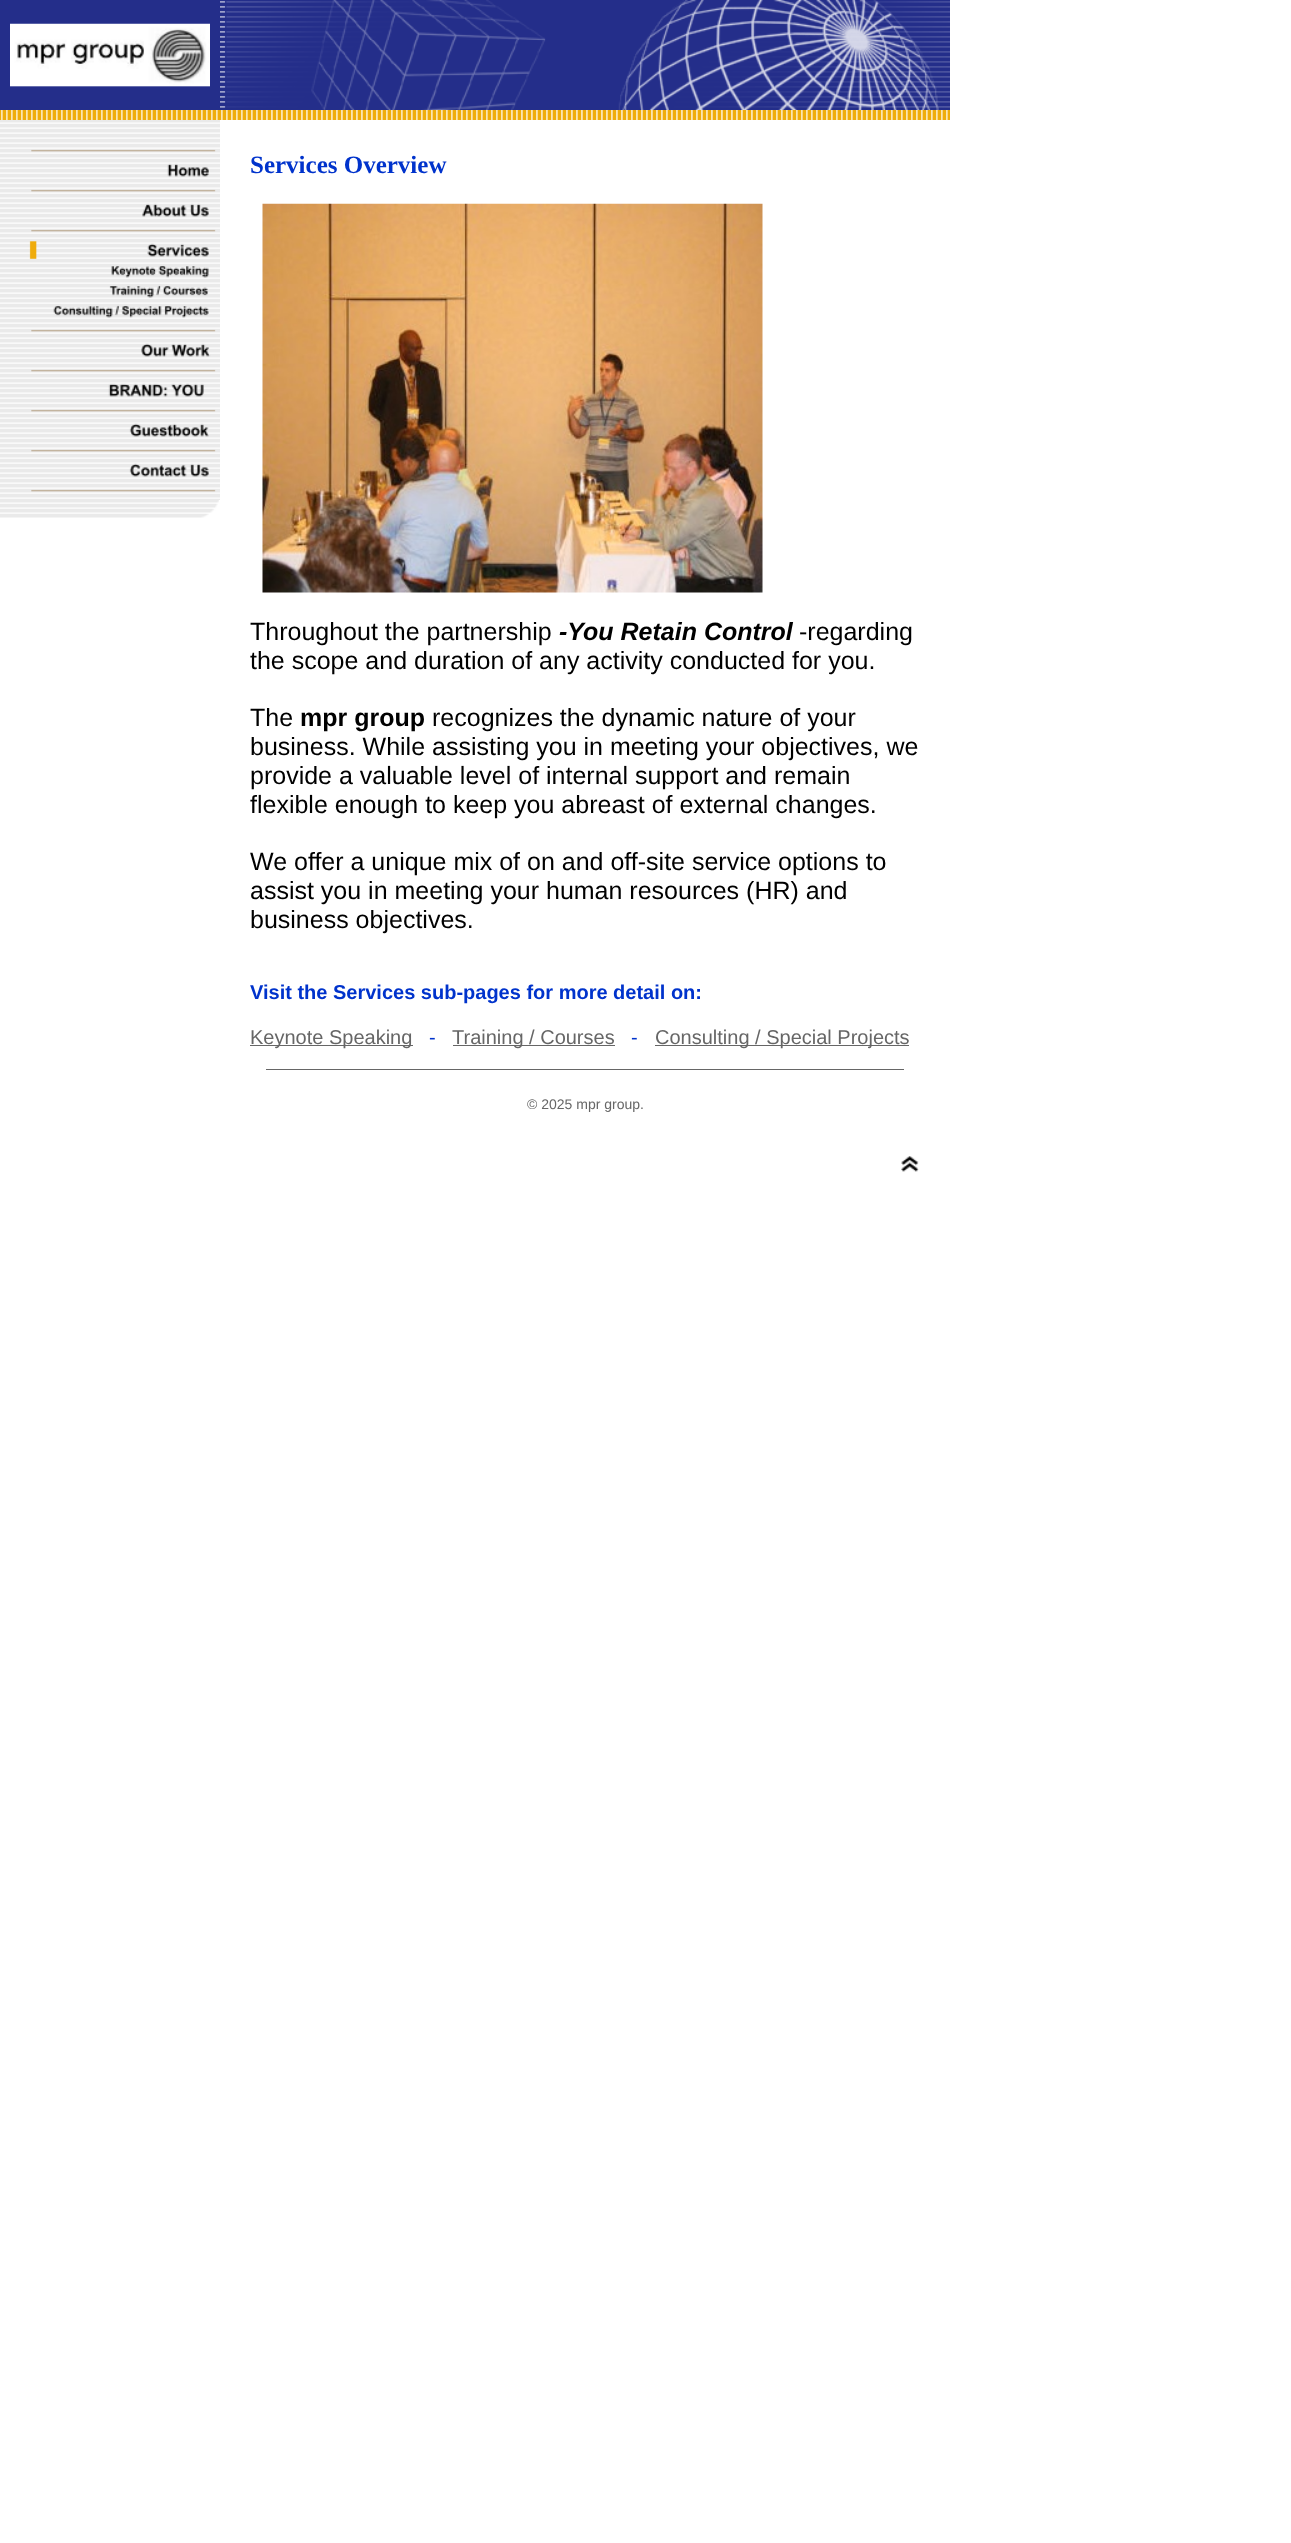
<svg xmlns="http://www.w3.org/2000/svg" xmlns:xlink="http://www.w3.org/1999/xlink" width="1291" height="2543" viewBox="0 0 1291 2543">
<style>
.cls-1{font:bold 25px Liberation Serif;fill:#0033cc}
.cls-2{font:25px Liberation Sans;fill:#000000}
.cls-3{font:italic bold 25px Liberation Sans;fill:#000000}
.cls-4{font:bold 25px Liberation Sans;fill:#000000}
.cls-5{font:bold 20px Liberation Sans;fill:#0033cc}
.cls-6{font:20px Liberation Sans;fill:#666666}
.cls-7{font:20px Liberation Sans;fill:#0033cc}
.cls-8{font:14px Liberation Sans;fill:#666666}
</style>
<rect width="100%" height="100%" fill="#ffffff"/>
<rect fill="#242e8a" x="0" y="0" width="10" height="110"/>
<rect fill="#242e8a" x="10" y="0" width="200" height="10"/>
<image xlink:href="image0.png" x="10" y="10" width="200" height="90"/>
<rect fill="#242e8a" x="10" y="100" width="200" height="10"/>
<rect fill="#242e8a" x="210" y="0" width="10" height="110"/>
<image xlink:href="image1.png" x="220" y="0" width="40" height="110"/>
<image xlink:href="image2.png" x="260" y="0" width="360" height="40"/>
<image xlink:href="image3.png" x="260" y="40" width="360" height="50"/>
<image xlink:href="image4.png" x="260" y="90" width="360" height="20"/>
<image xlink:href="image5.png" x="620" y="0" width="330" height="110"/>
<image xlink:href="image6.png" x="0" y="110" width="950" height="10"/>
<image xlink:href="image7.png" x="0" y="120" width="220" height="20"/>
<image xlink:href="image8.png" x="0" y="140" width="220" height="20"/>
<image xlink:href="image9.png" x="0" y="160" width="220" height="20"/>
<image xlink:href="image8.png" x="0" y="180" width="220" height="20"/>
<image xlink:href="image10.png" x="0" y="200" width="220" height="20"/>
<image xlink:href="image8.png" x="0" y="220" width="220" height="20"/>
<image xlink:href="image11.png" x="0" y="240" width="220" height="20"/>
<image xlink:href="image12.png" x="0" y="260" width="220" height="20"/>
<image xlink:href="image13.png" x="0" y="280" width="220" height="20"/>
<image xlink:href="image14.png" x="0" y="300" width="220" height="20"/>
<image xlink:href="image8.png" x="0" y="320" width="220" height="20"/>
<image xlink:href="image15.png" x="0" y="340" width="220" height="20"/>
<image xlink:href="image8.png" x="0" y="360" width="220" height="20"/>
<image xlink:href="image16.png" x="0" y="380" width="220" height="20"/>
<image xlink:href="image8.png" x="0" y="400" width="220" height="20"/>
<image xlink:href="image17.png" x="0" y="420" width="220" height="20"/>
<image xlink:href="image8.png" x="0" y="440" width="220" height="20"/>
<image xlink:href="image18.png" x="0" y="460" width="220" height="20"/>
<image xlink:href="image8.png" x="0" y="480" width="220" height="20"/>
<image xlink:href="image19.png" x="0" y="500" width="219" height="18"/>
<image xlink:href="image20.png" x="262" y="203" width="501" height="390"/>
<rect fill="#666666" x="250" y="1045" width="163" height="1"/>
<rect fill="#666666" x="453" y="1045" width="162" height="1"/>
<rect fill="#666666" x="655" y="1045" width="254" height="1"/>
<rect fill="#666666" x="266" y="1069" width="638" height="1"/>
<image xlink:href="image21.png" x="901" y="1156" width="18" height="16"/>
<text class="cls-1" x="250" y="173">Services Overview</text>
<text class="cls-2" x="250" y="640">Throughout the partnership</text>
<text class="cls-3" x="559" y="640">-You Retain Control</text>
<text class="cls-2" x="799" y="640">-regarding</text>
<text class="cls-2" x="250" y="669">the scope and duration of any activity conducted for you.</text>
<text class="cls-2" x="250" y="726">The</text>
<text class="cls-4" x="300" y="726">mpr group</text>
<text class="cls-2" x="432" y="726">recognizes the dynamic nature of your</text>
<text class="cls-2"><tspan x="250" y="755">business. While assisting you in meeting your objectives, we</tspan><tspan x="250" y="784">provide a valuable level of internal support and remain</tspan><tspan x="250" y="813">flexible enough to keep you abreast of external changes.</tspan></text>
<text class="cls-2"><tspan x="250" y="870">We offer a unique mix of on and off-site service options to</tspan><tspan x="250" y="899">assist you in meeting your human resources (HR) and</tspan><tspan x="250" y="928">business objectives.</tspan></text>
<text class="cls-5" x="250" y="999">Visit the Services sub-pages for more detail on:</text>
<text class="cls-6" x="250" y="1044">Keynote Speaking</text>
<text class="cls-7" x="429" y="1044">-</text>
<text class="cls-6" x="452" y="1044">Training / Courses</text>
<text class="cls-7" x="631" y="1044">-</text>
<text class="cls-6" x="655" y="1044">Consulting / Special Projects</text>
<text class="cls-8" x="527" y="1109">© 2025 mpr group.</text>
</svg>
